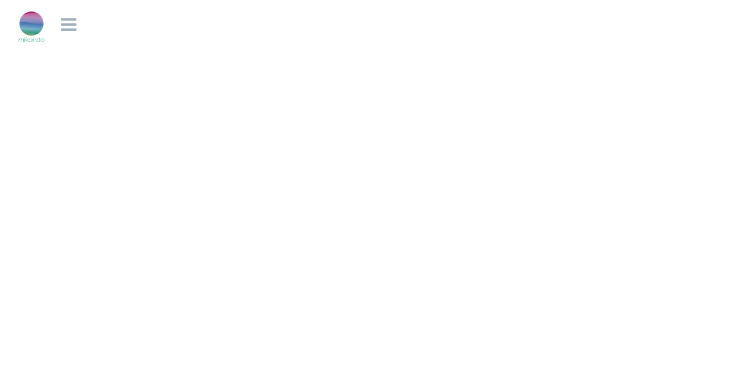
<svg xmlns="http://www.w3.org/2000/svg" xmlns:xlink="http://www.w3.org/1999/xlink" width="753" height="383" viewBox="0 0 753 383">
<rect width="100%" height="100%" fill="#ffffff"/>
<image xlink:href="image0.png" x="18" y="11" width="27" height="31"/>
<image xlink:href="image1.png" x="61" y="18" width="16" height="13"/>
</svg>
